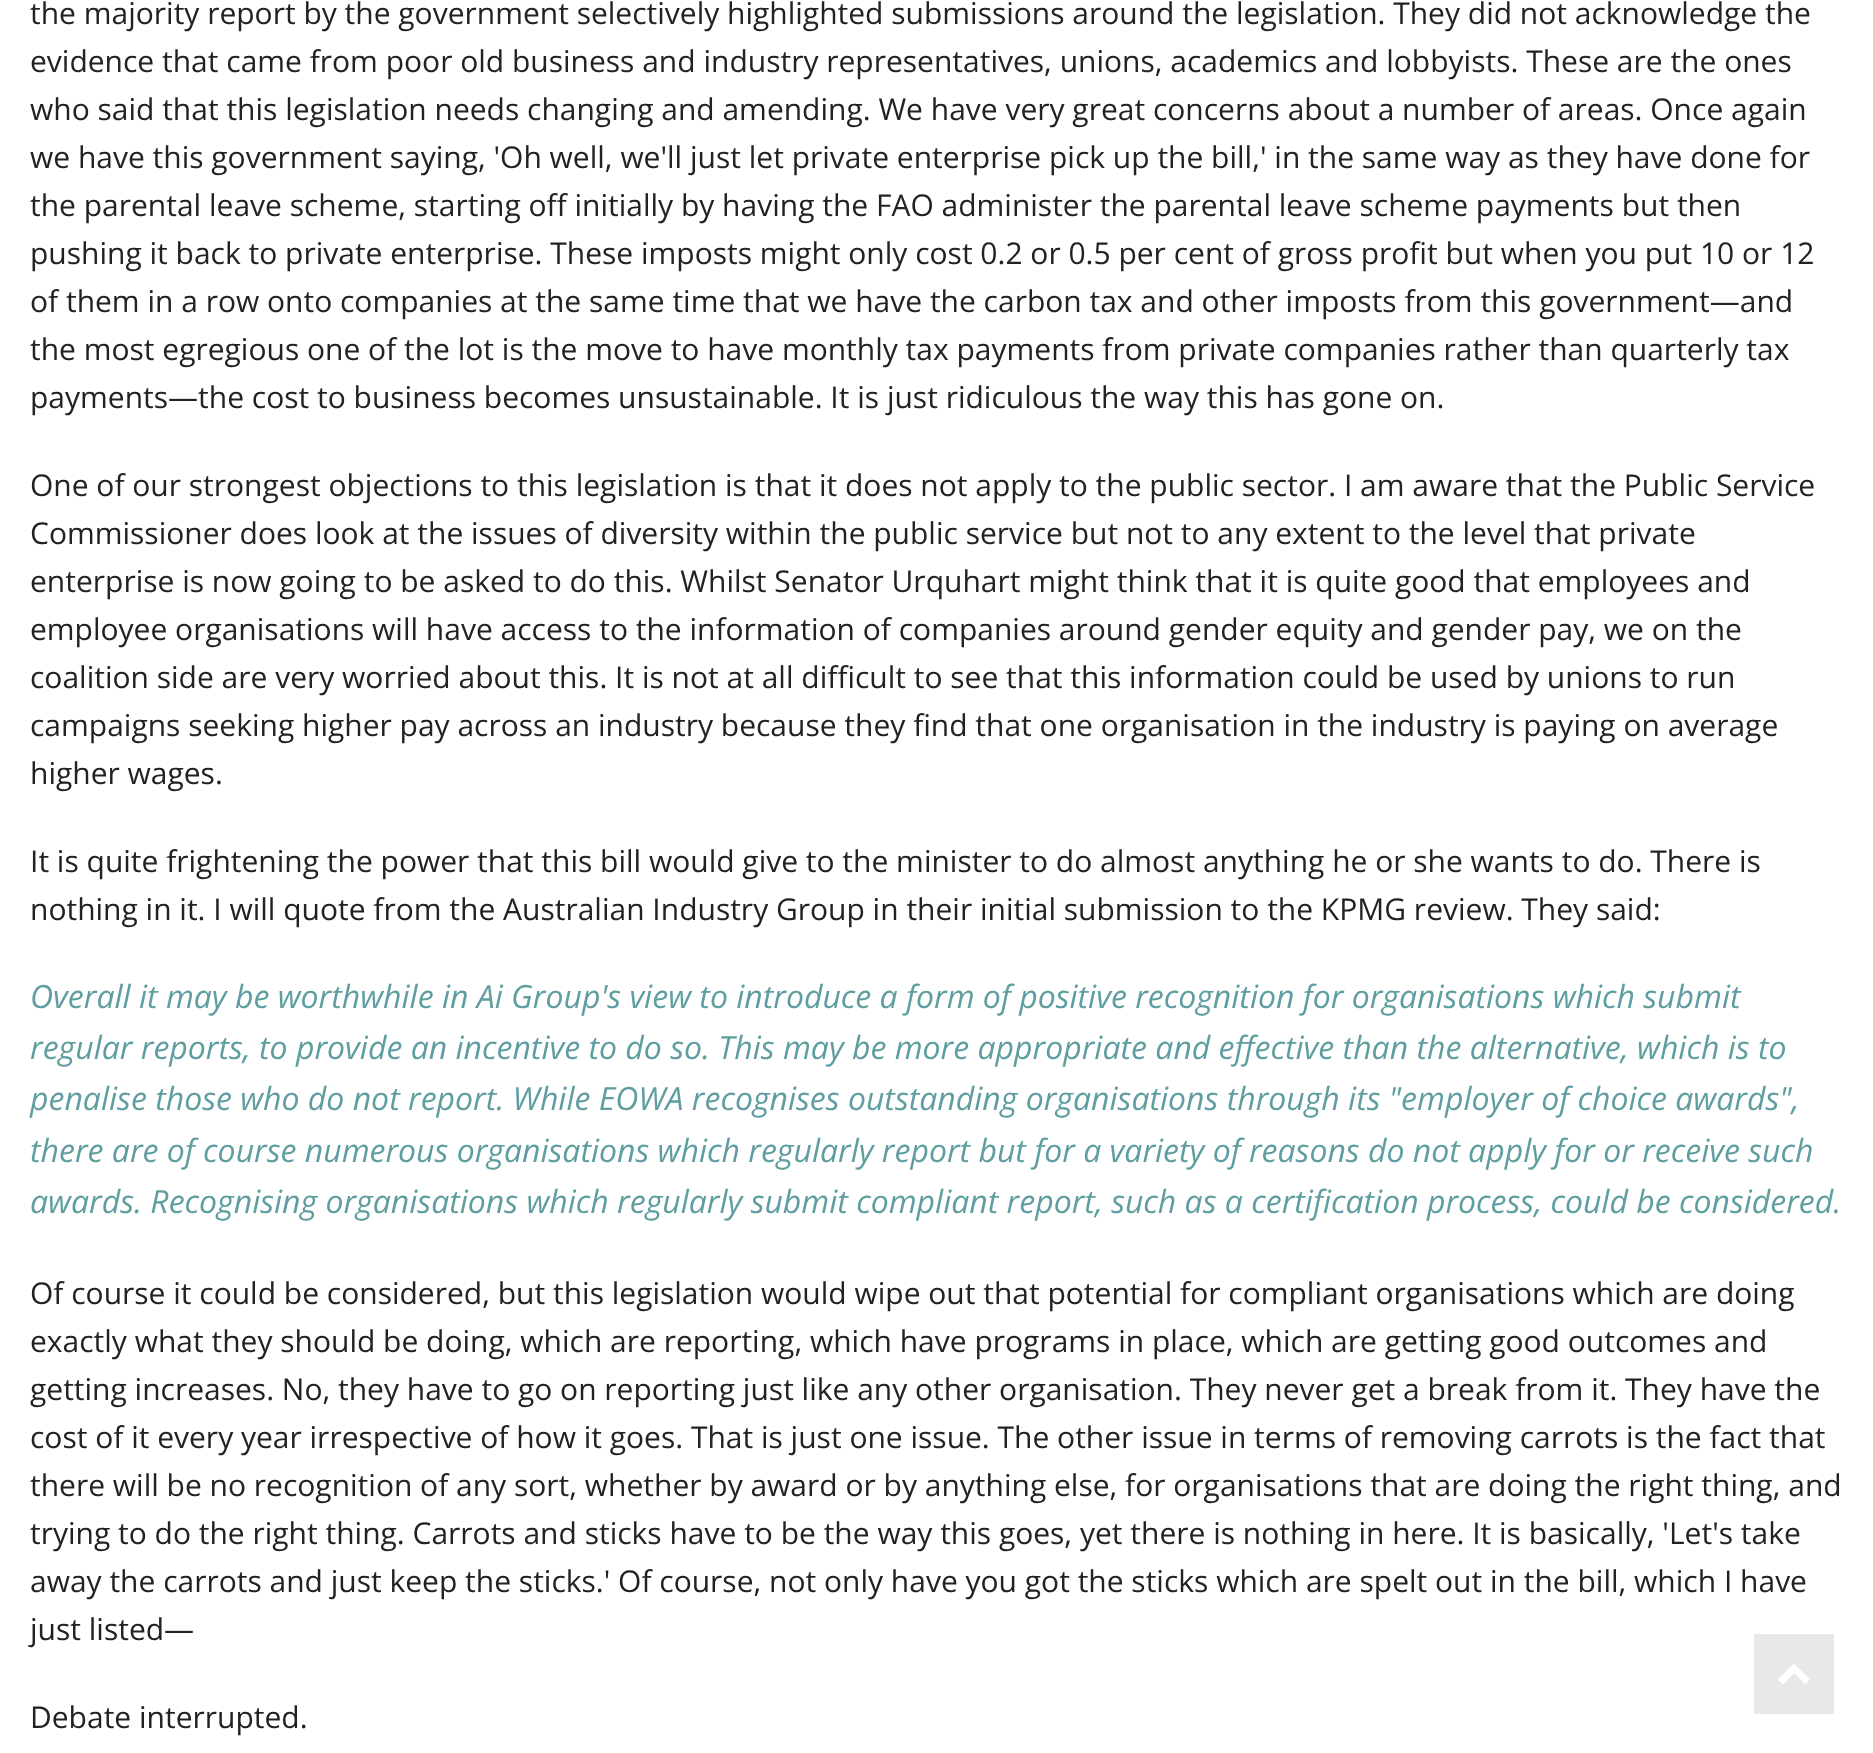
<svg xmlns="http://www.w3.org/2000/svg" xmlns:xlink="http://www.w3.org/1999/xlink" width="1873" height="1753" viewBox="0 0 1873 1753">
<style>
.cls-1{font:30px Open Sans;fill:#222222}
.cls-2{font:italic 32px Open Sans;fill:#5f9ea0}
</style>
<rect width="100%" height="100%" fill="#ffffff"/>
<rect fill="#e8e8e8" x="1754" y="1634" width="80" height="80"/>
<path fill="#ffffff" d="M1794 1663.5L1810 1679.5L1805 1684L1794 1673L1783 1684.5L1778 1679.5Z"/>
<text class="cls-1"><tspan x="30" y="24">the majority report by the government selectively highlighted submissions around the legislation. They did not acknowledge the</tspan><tspan x="30" y="72">evidence that came from poor old business and industry representatives, unions, academics and lobbyists. These are the ones</tspan><tspan x="30" y="120">who said that this legislation needs changing and amending. We have very great concerns about a number of areas. Once again</tspan><tspan x="30" y="168">we have this government saying, 'Oh well, we'll just let private enterprise pick up the bill,' in the same way as they have done for</tspan><tspan x="30" y="216">the parental leave scheme, starting off initially by having the FAO administer the parental leave scheme payments but then</tspan><tspan x="30" y="264">pushing it back to private enterprise. These imposts might only cost 0.2 or 0.5 per cent of gross profit but when you put 10 or 12</tspan><tspan x="30" y="312">of them in a row onto companies at the same time that we have the carbon tax and other imposts from this government—and</tspan><tspan x="30" y="360">the most egregious one of the lot is the move to have monthly tax payments from private companies rather than quarterly tax</tspan><tspan x="30" y="408">payments—the cost to business becomes unsustainable. It is just ridiculous the way this has gone on.</tspan></text>
<text class="cls-1"><tspan x="30" y="496">One of our strongest objections to this legislation is that it does not apply to the public sector. I am aware that the Public Service</tspan><tspan x="30" y="544">Commissioner does look at the issues of diversity within the public service but not to any extent to the level that private</tspan><tspan x="30" y="592">enterprise is now going to be asked to do this. Whilst Senator Urquhart might think that it is quite good that employees and</tspan><tspan x="30" y="640">employee organisations will have access to the information of companies around gender equity and gender pay, we on the</tspan><tspan x="30" y="688">coalition side are very worried about this. It is not at all difficult to see that this information could be used by unions to run</tspan><tspan x="30" y="736">campaigns seeking higher pay across an industry because they find that one organisation in the industry is paying on average</tspan><tspan x="30" y="784">higher wages.</tspan></text>
<text class="cls-1"><tspan x="30" y="872">It is quite frightening the power that this bill would give to the minister to do almost anything he or she wants to do. There is</tspan><tspan x="30" y="920">nothing in it. I will quote from the Australian Industry Group in their initial submission to the KPMG review. They said:</tspan></text>
<text class="cls-2"><tspan x="30" y="1008">Overall it may be worthwhile in Ai Group's view to introduce a form of positive recognition for organisations which submit</tspan><tspan x="30" y="1059">regular reports, to provide an incentive to do so. This may be more appropriate and effective than the alternative, which is to</tspan><tspan x="30" y="1110">penalise those who do not report. While EOWA recognises outstanding organisations through its "employer of choice awards",</tspan><tspan x="30" y="1162">there are of course numerous organisations which regularly report but for a variety of reasons do not apply for or receive such</tspan><tspan x="30" y="1213">awards. Recognising organisations which regularly submit compliant report, such as a certification process, could be considered.</tspan></text>
<text class="cls-1"><tspan x="30" y="1304">Of course it could be considered, but this legislation would wipe out that potential for compliant organisations which are doing</tspan><tspan x="30" y="1352">exactly what they should be doing, which are reporting, which have programs in place, which are getting good outcomes and</tspan><tspan x="30" y="1400">getting increases. No, they have to go on reporting just like any other organisation. They never get a break from it. They have the</tspan><tspan x="30" y="1448">cost of it every year irrespective of how it goes. That is just one issue. The other issue in terms of removing carrots is the fact that</tspan><tspan x="30" y="1496">there will be no recognition of any sort, whether by award or by anything else, for organisations that are doing the right thing, and</tspan><tspan x="30" y="1544">trying to do the right thing. Carrots and sticks have to be the way this goes, yet there is nothing in here. It is basically, 'Let's take</tspan><tspan x="30" y="1592">away the carrots and just keep the sticks.' Of course, not only have you got the sticks which are spelt out in the bill, which I have</tspan><tspan x="30" y="1640">just listed—</tspan></text>
<text class="cls-1" x="30" y="1728">Debate interrupted.</text>
</svg>
